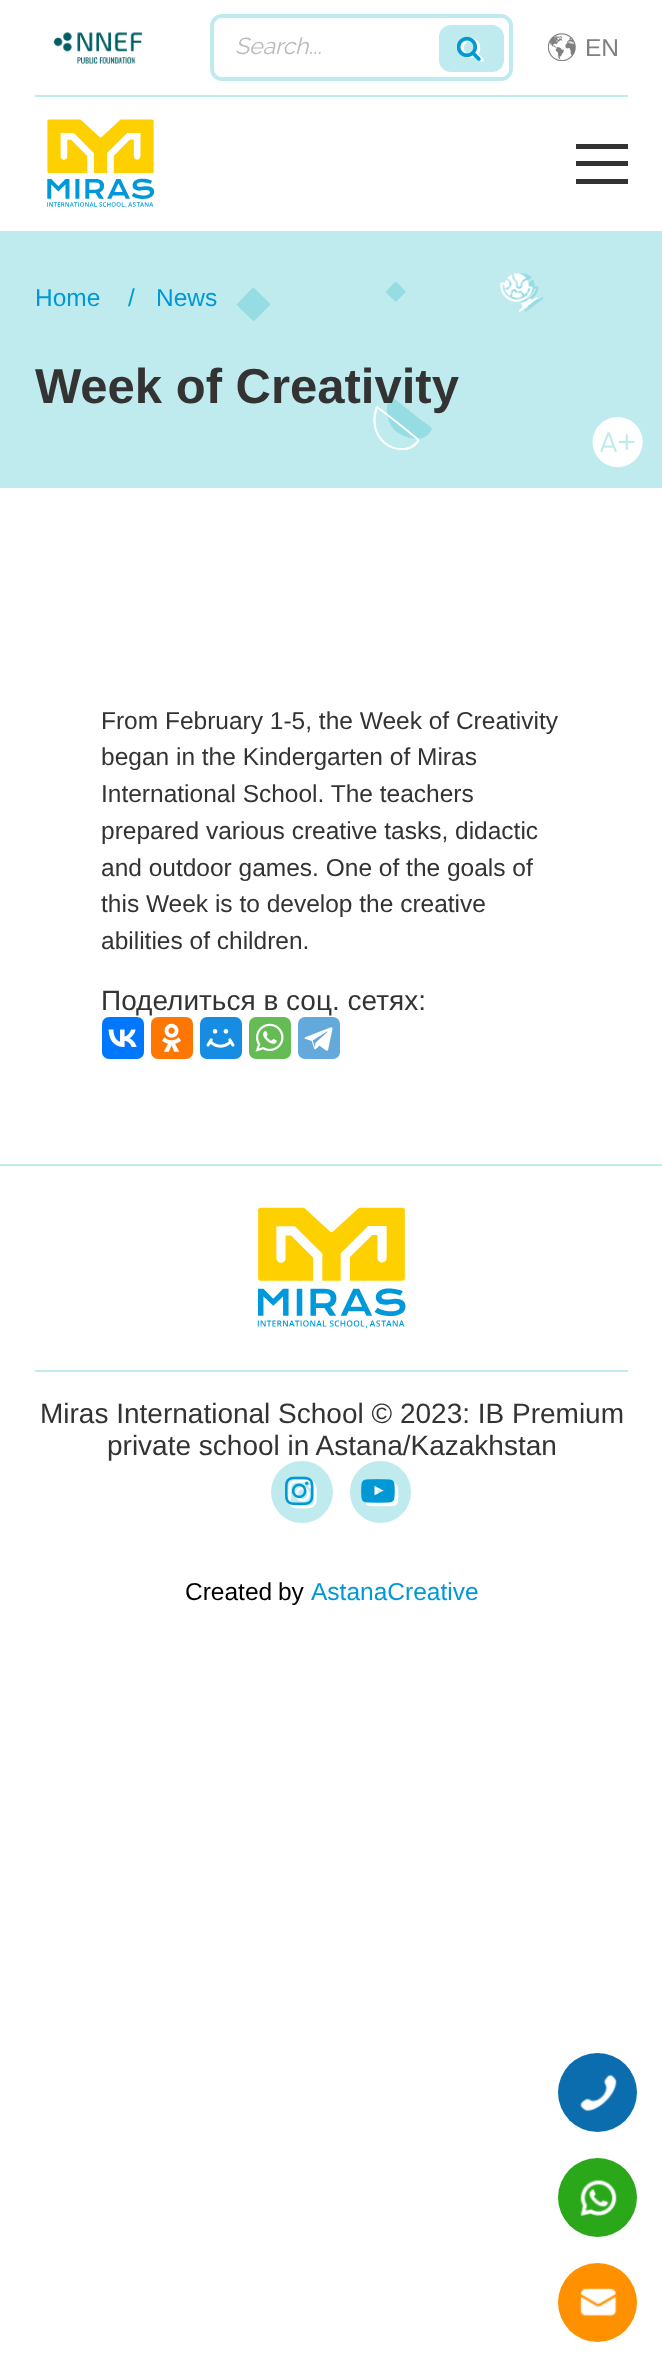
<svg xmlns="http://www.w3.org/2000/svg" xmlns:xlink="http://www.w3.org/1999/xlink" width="662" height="2367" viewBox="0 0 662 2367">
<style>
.cls-1{font:italic 23px Raleway;fill:#bababa}
.cls-2{font:24.5px Liberation Sans;fill:#808080}
.cls-3{font:24.5px Liberation Sans;fill:#0099d5}
.cls-4{font:bold 49px Liberation Sans;fill:#333333}
.cls-5{font:24.5px Liberation Sans;fill:#333333}
.cls-6{font:28px Liberation Sans;fill:#333333}
.cls-7{font:24.5px Liberation Sans;fill:#000000}
</style>
<rect width="100%" height="100%" fill="#ffffff"/>
<rect fill="#bfebee" x="35" y="95" width="593" height="2"/>
<image xlink:href="image0.png" x="53" y="32" width="89" height="32"/>
<rect fill="none" stroke="#bfebee" stroke-width="4" x="212" y="16" width="299" height="63" rx="10"/>
<rect fill="#bfebee" x="439" y="25" width="65" height="47" rx="12"/>
<image xlink:href="image1.png" x="457" y="36" width="27" height="26"/>
<image xlink:href="image2.png" x="548" y="33" width="28" height="28"/>
<image xlink:href="image3.png" x="47" y="119" width="108" height="89"/>
<rect fill="#333333" x="576" y="144" width="52" height="5"/>
<rect fill="#333333" x="576" y="161" width="52" height="5"/>
<rect fill="#333333" x="576" y="179" width="52" height="5"/>
<rect fill="#bfebee" x="0" y="231" width="662" height="257"/>
<image xlink:href="image4.png" x="236" y="287" width="35" height="34"/>
<image xlink:href="image5.png" x="385" y="282" width="21" height="20"/>
<image xlink:href="image6.png" x="500" y="273" width="44" height="39"/>
<path fill="#95dde2" d="M400 434C390 429 386 417 387 407L389 397C389 396 390 395 391 396L421 420C421 420 432 427 432 429L431 431C429 434 427 436 423 438C416 440 407 438 400 434Z"/>
<image xlink:href="image7.png" x="373" y="405" width="47" height="45"/>
<image xlink:href="image8.png" x="592" y="417" width="51" height="51"/>
<rect fill="#0077ff" x="102" y="1017" width="42" height="42" rx="7"/>
<image xlink:href="image9.png" x="108" y="1029" width="29" height="18"/>
<rect fill="#ff7700" x="151" y="1017" width="42" height="42" rx="7"/>
<image xlink:href="image10.png" x="162" y="1023" width="19" height="29"/>
<rect fill="#168de2" x="200" y="1017" width="42" height="42" rx="7"/>
<image xlink:href="image11.png" x="206" y="1029" width="29" height="19"/>
<rect fill="#65bc54" x="249" y="1017" width="42" height="42" rx="7"/>
<image xlink:href="image12.png" x="255" y="1023" width="29" height="29"/>
<rect fill="#64a9dc" x="298" y="1017" width="42" height="42" rx="7"/>
<image xlink:href="image13.png" x="304" y="1027" width="29" height="24"/>
<rect fill="#bfebee" x="0" y="1164" width="662" height="2"/>
<image xlink:href="image14.png" x="257" y="1207" width="149" height="122"/>
<rect fill="#bfebee" x="35" y="1370" width="593" height="2"/>
<circle fill="#bfebee" cx="302" cy="1492" r="31"/>
<image xlink:href="image15.png" x="284" y="1476" width="33" height="33"/>
<rect fill="#bfebee" x="350" y="1461" width="61" height="62" rx="30.5"/>
<image xlink:href="image16.png" x="361" y="1479" width="38" height="28"/>
<circle fill="#0c6dae" cx="597.5" cy="2092.5" r="39.5"/>
<image xlink:href="image17.png" x="580" y="2074" width="37" height="37"/>
<circle fill="#2aa81a" cx="597.5" cy="2197.5" r="39.5"/>
<image xlink:href="image18.png" x="580" y="2179" width="37" height="37"/>
<circle fill="#ff9100" cx="597.5" cy="2302.5" r="39.5"/>
<image xlink:href="image19.png" x="580" y="2288" width="37" height="28"/>
<text class="cls-1" x="235" y="54">Search...</text>
<text class="cls-2" x="585" y="56">EN</text>
<text class="cls-3" x="35" y="306">Home</text>
<text class="cls-3" x="128" y="306">/</text>
<text class="cls-3" x="156" y="306">News</text>
<text class="cls-4" x="35" y="403">Week of Creativity</text>
<text class="cls-5"><tspan x="101" y="729">From February 1-5, the Week of Creativity</tspan><tspan x="101" y="765">began in the Kindergarten of Miras</tspan><tspan x="101" y="802">International School. The teachers</tspan><tspan x="101" y="839">prepared various creative tasks, didactic</tspan><tspan x="101" y="876">and outdoor games. One of the goals of</tspan><tspan x="101" y="912">this Week is to develop the creative</tspan><tspan x="101" y="949">abilities of children.</tspan></text>
<text class="cls-6" x="101" y="1010">Поделиться в соц. сетях:</text>
<text class="cls-6" x="40" y="1423">Miras International School © 2023: IB Premium</text>
<text class="cls-6" x="107" y="1455">private school in Astana/Kazakhstan</text>
<text class="cls-7" x="185" y="1600" word-spacing="-1">Created by</text>
<text class="cls-3" x="311" y="1600">AstanaCreative</text>
</svg>
